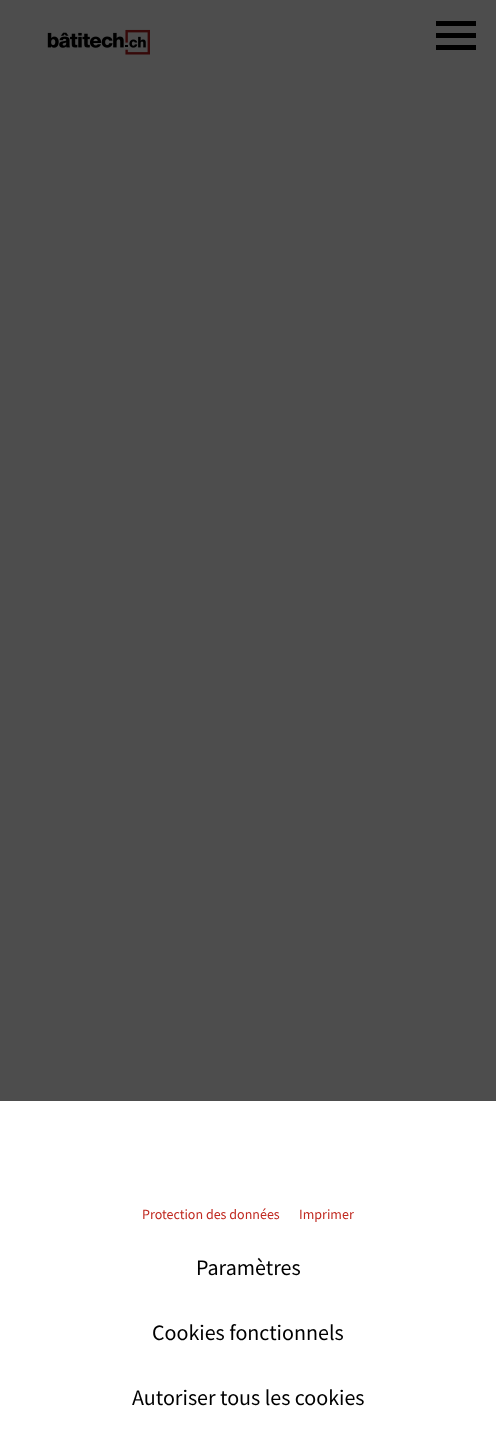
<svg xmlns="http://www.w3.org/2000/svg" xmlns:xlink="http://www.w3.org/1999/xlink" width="496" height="1440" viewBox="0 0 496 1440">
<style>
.cls-1{font:14px Source Sans Pro;fill:#c02920}
.cls-2{font:22px Source Sans Pro;fill:#000000}
</style>
<rect width="100%" height="100%" fill="#4d4d4d"/>
<image xlink:href="image0.png" x="47" y="29" width="103" height="26"/>
<rect fill="#000000" x="436" y="21" width="40" height="5"/>
<rect fill="#000000" x="436" y="33" width="40" height="5"/>
<rect fill="#000000" x="436" y="45" width="40" height="5"/>
<rect fill="#ffffff" x="0" y="1101" width="496" height="339"/>
<text class="cls-1" x="142" y="1219">Protection des données</text>
<text class="cls-1" x="299" y="1219">Imprimer</text>
<text class="cls-2" x="196" y="1275">Paramètres</text>
<text class="cls-2" x="152" y="1340">Cookies fonctionnels</text>
<text class="cls-2" x="132" y="1405">Autoriser tous les cookies</text>
</svg>
